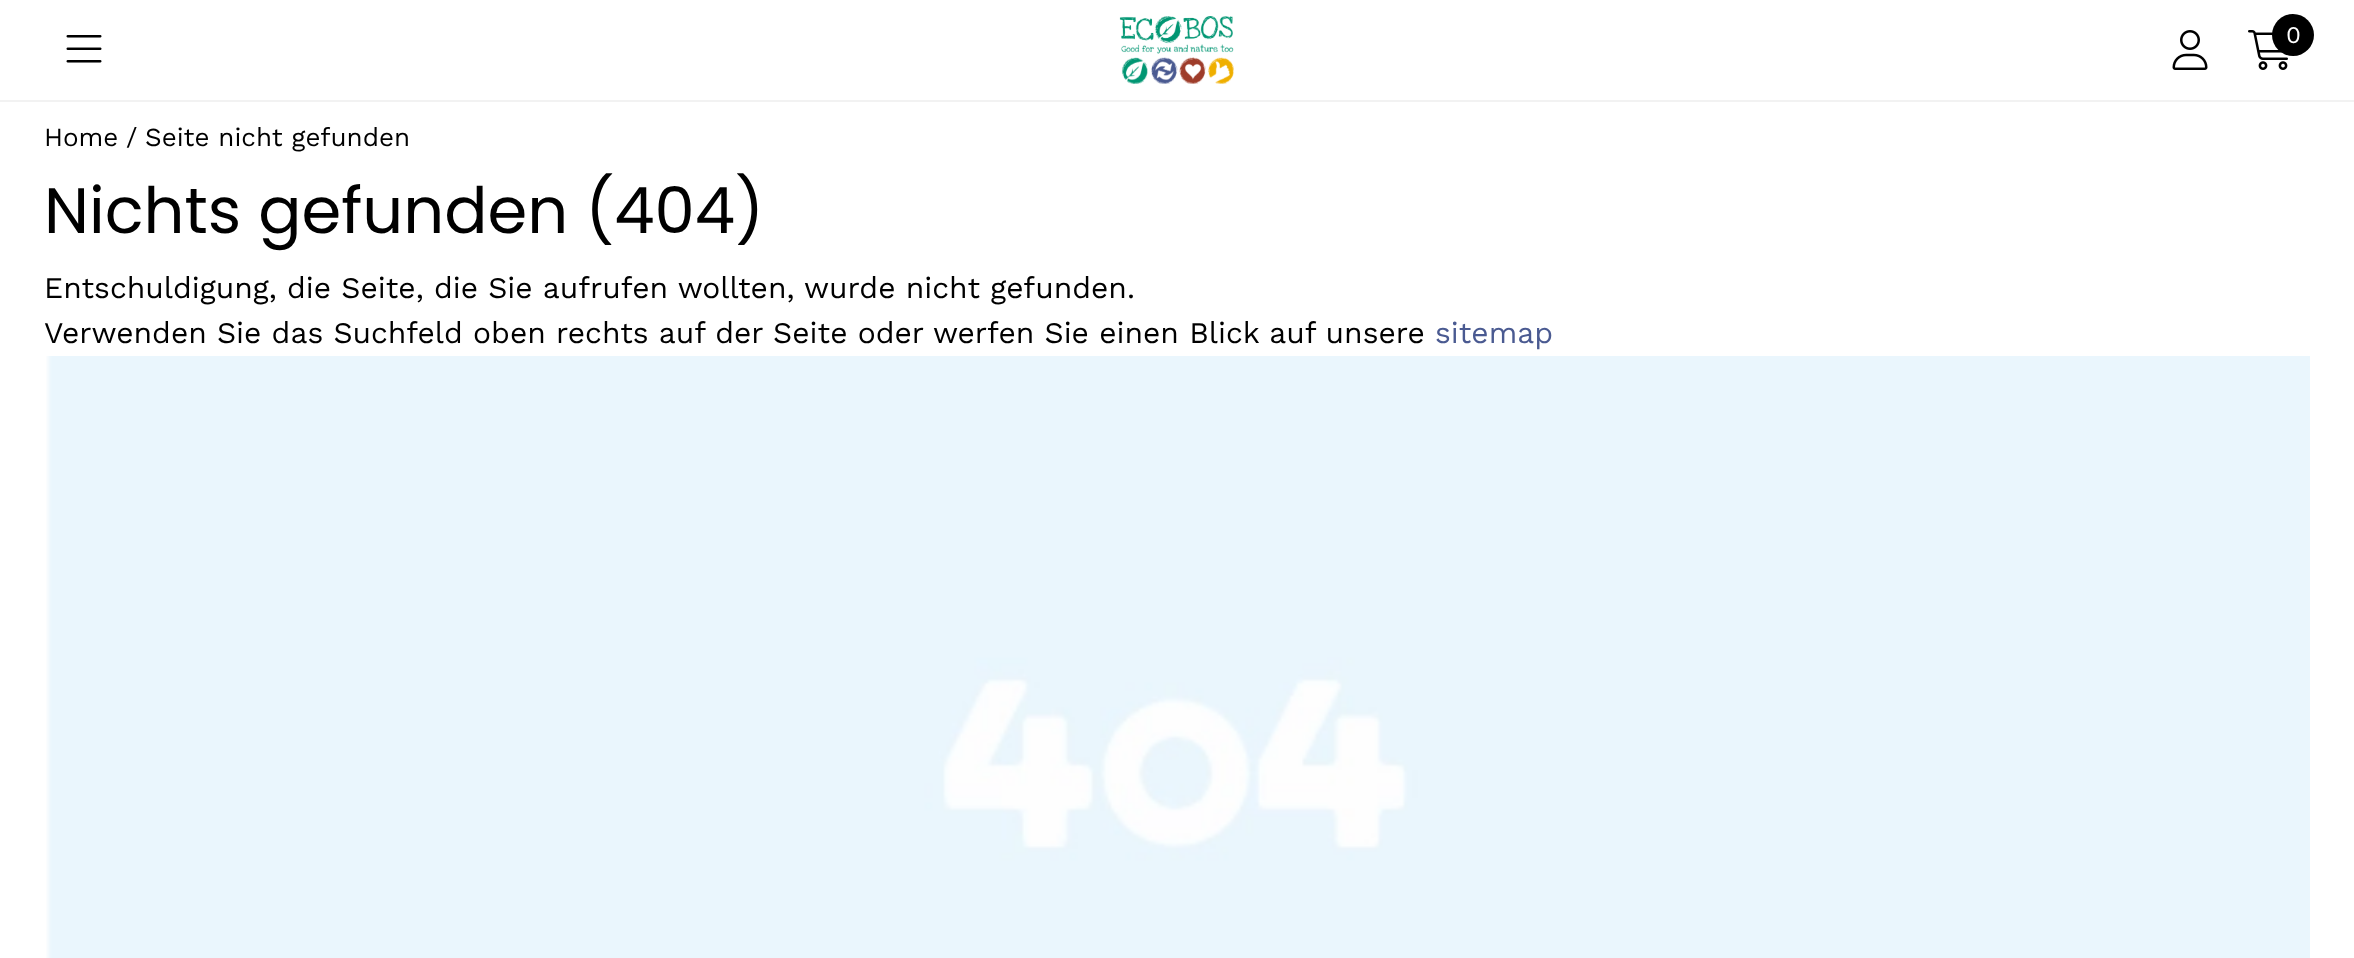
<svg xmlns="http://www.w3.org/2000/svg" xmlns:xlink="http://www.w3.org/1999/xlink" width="2354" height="958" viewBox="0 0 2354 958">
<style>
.cls-1{font:24px Work Sans;fill:#ffffff}
.cls-2{font:26px Work Sans;fill:#000000}
.cls-3{font:64px Poppins;fill:#000000}
.cls-4{font:30px Work Sans;fill:#000000}
.cls-5{font:30px Work Sans;fill:#4a5a91}
</style>
<rect width="100%" height="100%" fill="#ffffff"/>
<rect fill="#f2f2f2" x="0" y="100" width="2354" height="2"/>
<image xlink:href="image0.png" x="66" y="35" width="36" height="28"/>
<image xlink:href="image1.png" x="1119" y="16" width="115" height="68"/>
<image xlink:href="image2.png" x="2172" y="30" width="36" height="40"/>
<image xlink:href="image3.png" x="2248" y="30" width="40" height="40"/>
<circle fill="#000000" cx="2293" cy="35" r="21"/>
<image xlink:href="image4.png" x="46" y="356" width="2264" height="602"/>
<text class="cls-1" x="2286" y="43">0</text>
<text class="cls-2" x="44" y="146">Home</text>
<text class="cls-2" x="126" y="146">/</text>
<text class="cls-2" x="145" y="146">Seite nicht gefunden</text>
<text class="cls-3" x="44" y="233">Nichts gefunden (404)</text>
<text class="cls-4"><tspan x="44" y="298">Entschuldigung, die Seite, die Sie aufrufen wollten, wurde nicht gefunden.</tspan><tspan x="44" y="343">Verwenden Sie das Suchfeld oben rechts auf der Seite oder werfen Sie einen Blick auf unsere</tspan></text>
<text class="cls-5" x="1435" y="343">sitemap</text>
</svg>
